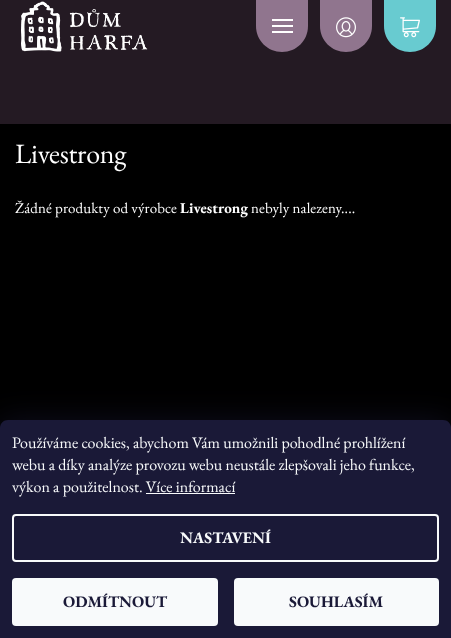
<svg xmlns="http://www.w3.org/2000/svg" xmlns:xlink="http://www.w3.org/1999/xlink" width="451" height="638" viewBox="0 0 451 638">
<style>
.cls-1{font:28px EB Garamond;letter-spacing:-0.25px;fill:#ffffff}
.cls-2{font:15px EB Garamond;letter-spacing:0.1px;fill:#ffffff}
.cls-3{font:bold 15px EB Garamond;letter-spacing:0.1px;fill:#ffffff}
.cls-4{font:16px EB Garamond;fill:#f8fafb}
.cls-5{font:bold 16px EB Garamond;fill:#f8fafb}
.cls-6{font:bold 16px EB Garamond;fill:#1a1937}
</style>
<rect width="100%" height="100%" fill="#000000"/>
<rect fill="#241a23" x="0" y="0" width="451" height="124"/>
<image xlink:href="image0.png" x="21" y="1" width="127" height="51"/>
<path fill="#90758e" d="M256 0H308V26C308 40.5 296.5 52 282 52C267.5 52 256 40.5 256 26Z"/>
<rect fill="#ffffff" x="272" y="19" width="21" height="2"/>
<rect fill="#ffffff" x="272" y="25" width="21" height="2"/>
<rect fill="#ffffff" x="272" y="31" width="21" height="2"/>
<path fill="#90758e" d="M320 0H372V26C372 40.5 360.5 52 346 52C331.5 52 320 40.5 320 26Z"/>
<image xlink:href="image1.png" x="336" y="17" width="20" height="21"/>
<path fill="#68cbd0" d="M384 0H436V26C436 40.5 424.5 52 410 52C395.5 52 384 40.5 384 26Z"/>
<image xlink:href="image2.png" x="400" y="17" width="20" height="21"/>
<rect fill="#1b1939" fill-opacity="0.5" filter="blur(15px)" x="0" y="420" width="451" height="218" rx="8"/>
<path fill="#1a1937" d="M8 420H443C447.5 420 451 423.5 451 428V638H0V428C0 423.5 3.5 420 8 420Z"/>
<rect fill="#f8fafb" x="146" y="493" width="89" height="1"/>
<rect fill="none" stroke="#f8fafb" stroke-width="2" x="13" y="515" width="425" height="46" rx="3"/>
<rect fill="#f8fafb" x="12" y="578" width="206" height="48" rx="4"/>
<rect fill="#f8fafb" x="234" y="578" width="205" height="48" rx="4"/>
<text class="cls-1" x="15" y="163">Livestrong</text>
<text class="cls-2" x="15" y="213">Žádné produkty od výrobce</text>
<text class="cls-3" x="180" y="213">Livestrong</text>
<text class="cls-2" x="251" y="213">nebyly nalezeny....</text>
<text class="cls-4"><tspan x="12" y="448">Používáme cookies, abychom Vám umožnili pohodlné prohlížení</tspan><tspan x="12" y="470">webu a díky analýze provozu webu neustále zlepšovali jeho funkce,</tspan><tspan x="12" y="492">výkon a použitelnost. Více informací</tspan></text>
<text class="cls-5" x="180" y="543">NASTAVENÍ</text>
<text class="cls-6" x="63" y="607">ODMÍTNOUT</text>
<text class="cls-6" x="289" y="607">SOUHLASÍM</text>
</svg>
